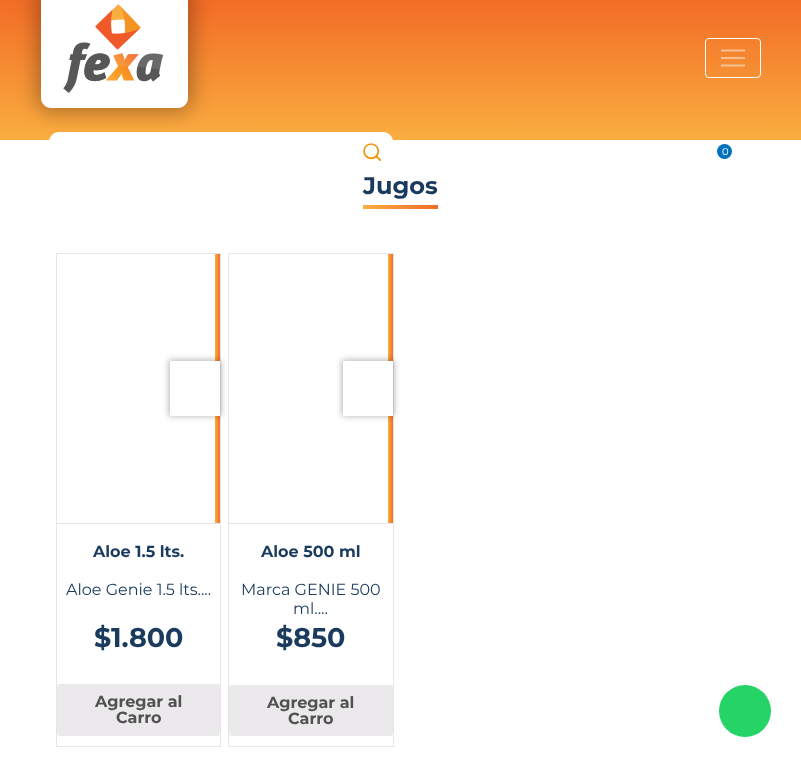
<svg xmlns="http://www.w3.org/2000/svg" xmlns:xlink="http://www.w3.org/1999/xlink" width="801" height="767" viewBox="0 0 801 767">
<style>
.cls-1{font:10px Montserrat;fill:#ffffff}
.cls-2{font:bold 24px Montserrat;fill:#1a3b5d}
.cls-3{font:bold 16px Montserrat;fill:#1a3b5d}
.cls-4{font:16px Montserrat;fill:#1a3b5d}
.cls-5{font:bold 27px Montserrat;fill:#1a3b5d}
.cls-6{font:bold 16px Montserrat;fill:#515151}
</style>
<defs>
<linearGradient id="g1" gradientUnits="userSpaceOnUse" x1="401" y1="140" x2="401" y2="0"><stop offset="0" stop-color="#faae40"/><stop offset="1" stop-color="#f26c26"/></linearGradient>
<linearGradient id="g2" gradientUnits="userSpaceOnUse" x1="363" y1="207" x2="438" y2="207"><stop offset="0" stop-color="#faae40"/><stop offset="1" stop-color="#f26c26"/></linearGradient>
<linearGradient id="g3" gradientUnits="userSpaceOnUse" x1="215" y1="389" x2="220" y2="389"><stop offset="0" stop-color="#faae40"/><stop offset="1" stop-color="#f26c26"/></linearGradient>
<linearGradient id="g4" gradientUnits="userSpaceOnUse" x1="388" y1="389" x2="393" y2="389"><stop offset="0" stop-color="#faae40"/><stop offset="1" stop-color="#f26c26"/></linearGradient>
</defs>
<rect width="100%" height="100%" fill="#ffffff"/>
<rect fill="url(#g1)" x="0" y="0" width="801" height="140"/>
<path fill="#ffffff" d="M59 132H352V170H59C53.5 170 49 165.5 49 160V142C49 136.5 53.5 132 59 132Z"/>
<rect fill="#000000" fill-opacity="0.3" filter="blur(10px)" x="37" y="-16" width="155" height="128" rx="14"/>
<path fill="#ffffff" d="M41-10H188V98C188 103.5 183.5 108 178 108H51C45.5 108 41 103.5 41 98Z"/>
<image xlink:href="image0.png" x="63" y="4" width="101" height="89"/>
<rect fill="none" stroke="#ffffff" x="705.5" y="38.5" width="55" height="39" rx="3.5"/>
<image xlink:href="image1.png" x="720" y="49" width="26" height="18"/>
<path fill="#ffffff" d="M351 132H383C388.5 132 393 136.5 393 142V160C393 165.5 388.5 170 383 170H351Z"/>
<image xlink:href="image2.png" x="363" y="143" width="18" height="18"/>
<circle fill="#0071bd" cx="724.5" cy="151.5" r="7.5"/>
<rect fill="url(#g2)" x="363" y="205" width="75" height="4"/>
<rect fill="none" stroke="#e6e6e6" x="56.5" y="253.5" width="164" height="493"/>
<rect fill="#e6e6e6" x="57" y="523" width="163" height="1"/>
<rect fill="url(#g3)" x="215" y="254" width="5" height="269"/>
<rect fill="#000000" fill-opacity="0.3" filter="blur(3px)" x="169" y="360" width="52" height="56"/>
<rect fill="#ffffff" x="170" y="361" width="50" height="55"/>
<rect fill="#ebe9eb" x="57" y="684" width="163" height="52" rx="3"/>
<rect fill="none" stroke="#e6e6e6" x="228.5" y="253.5" width="165" height="493"/>
<rect fill="#e6e6e6" x="229" y="523" width="164" height="1"/>
<rect fill="url(#g4)" x="388" y="254" width="5" height="269"/>
<rect fill="#000000" fill-opacity="0.3" filter="blur(3px)" x="342" y="360" width="52" height="56"/>
<rect fill="#ffffff" x="343" y="361" width="50" height="55"/>
<rect fill="#ebe9eb" x="229" y="685" width="164" height="51" rx="3"/>
<circle fill="#25d366" cx="745" cy="711" r="26"/>
<text class="cls-1" x="722" y="155">0</text>
<text class="cls-2" x="363" y="194">Jugos</text>
<text class="cls-3" x="93" y="557">Aloe 1.5 lts.</text>
<text class="cls-4" x="66" y="595">Aloe Genie 1.5 lts....</text>
<text class="cls-5" x="94" y="647">$1.800</text>
<text class="cls-6" x="95" y="707">Agregar al</text>
<text class="cls-6" x="116" y="723">Carro</text>
<text class="cls-3" x="261" y="557">Aloe 500 ml</text>
<text class="cls-4" x="241" y="595">Marca GENIE 500</text>
<text class="cls-4" x="293" y="614">ml....</text>
<text class="cls-5" x="276" y="647">$850</text>
<text class="cls-6" x="267" y="708">Agregar al</text>
<text class="cls-6" x="288" y="724">Carro</text>
</svg>
